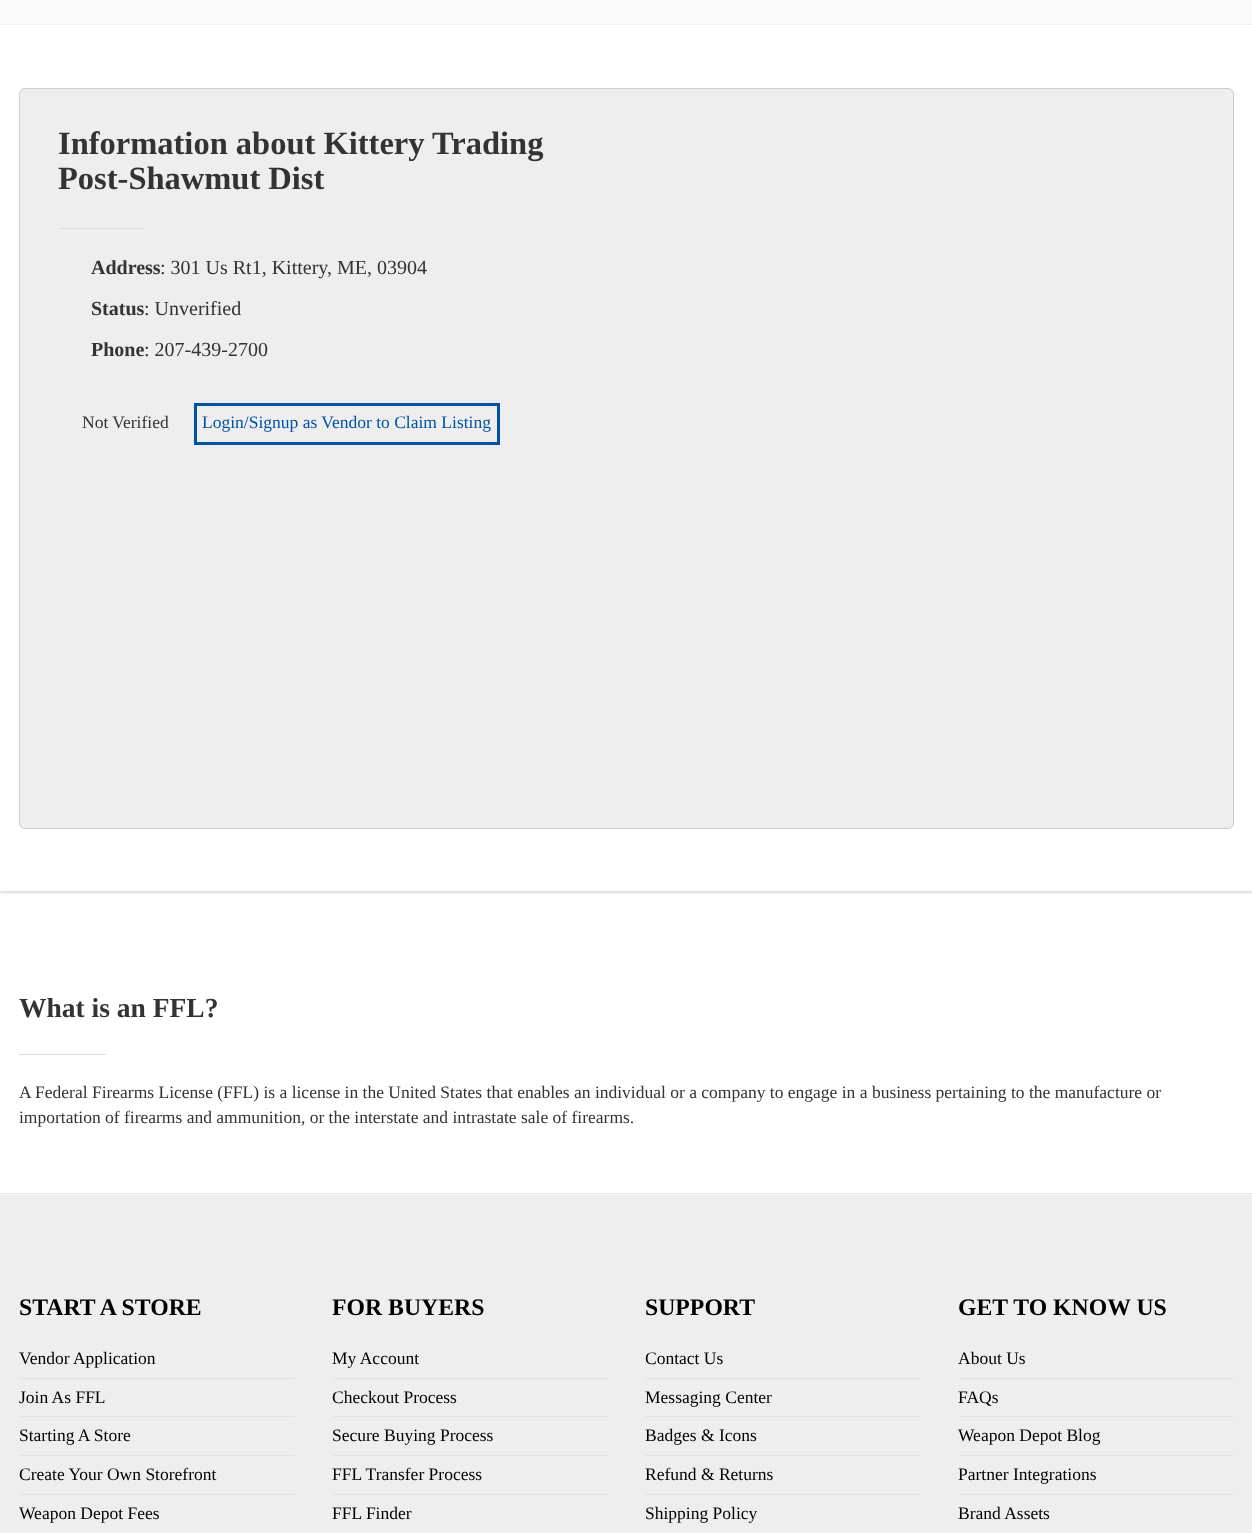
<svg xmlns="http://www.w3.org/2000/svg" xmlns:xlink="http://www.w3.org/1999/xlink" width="1252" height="1533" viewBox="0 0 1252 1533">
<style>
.cls-1{font:bold 32.5px Liberation Serif;fill:#333333}
.cls-2{font:bold 20px Liberation Serif;fill:#333333}
.cls-3{font:20px Liberation Serif;fill:#333333}
.cls-4{font:17.5px Liberation Serif;fill:#333333}
.cls-5{font:17.5px Liberation Serif;fill:#0052a4}
.cls-6{font:bold 27.5px Liberation Serif;fill:#333333}
.cls-7{font:bold 23.75px Liberation Serif;fill:#000000}
.cls-8{font:17.5px Liberation Serif;fill:#000000}
</style>
<defs>
<clipPath id="clip1"><path d="M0 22H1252V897H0ZM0 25H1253V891H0Z" clip-rule="evenodd"/></clipPath>
<clipPath id="clip2"><path d="M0 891H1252V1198H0ZM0 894H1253V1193H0Z" clip-rule="evenodd"/></clipPath>
</defs>
<rect width="100%" height="100%" fill="#ffffff"/>
<rect fill="#f9f9f9" x="0" y="0" width="1252" height="24"/>
<rect fill="#f2f3f6" x="0" y="24" width="1252" height="1"/>
<g clip-path="url(#clip1)">
<rect fill="#dedede" filter="blur(1px)" x="0" y="26" width="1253" height="867"/>
</g>
<rect fill="#eeeeee" stroke="#cccccc" x="19.5" y="88.5" width="1214" height="740" rx="5.5"/>
<rect fill="#dddddd" x="58" y="228" width="87" height="1"/>
<rect fill="none" stroke="#0052a4" stroke-width="3" x="195.5" y="404.5" width="303" height="39"/>
<rect fill="#eeeeee" x="0" y="1195" width="1252" height="338"/>
<g clip-path="url(#clip2)">
<rect fill="#dedede" filter="blur(1px)" x="0" y="895" width="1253" height="299"/>
</g>
<rect fill="#dddddd" x="19" y="1054" width="87" height="1"/>
<rect fill="#e2e2e2" x="19" y="1378" width="276" height="1"/>
<rect fill="#e2e2e2" x="19" y="1416" width="276" height="1"/>
<rect fill="#e2e2e2" x="19" y="1455" width="276" height="1"/>
<rect fill="#e2e2e2" x="19" y="1494" width="276" height="1"/>
<rect fill="#e2e2e2" x="333" y="1378" width="275" height="1"/>
<rect fill="#e2e2e2" x="333" y="1416" width="275" height="1"/>
<rect fill="#e2e2e2" x="333" y="1455" width="275" height="1"/>
<rect fill="#e2e2e2" x="333" y="1494" width="275" height="1"/>
<rect fill="#e2e2e2" x="645" y="1378" width="276" height="1"/>
<rect fill="#e2e2e2" x="645" y="1416" width="276" height="1"/>
<rect fill="#e2e2e2" x="645" y="1455" width="276" height="1"/>
<rect fill="#e2e2e2" x="645" y="1494" width="276" height="1"/>
<rect fill="#e2e2e2" x="959" y="1378" width="275" height="1"/>
<rect fill="#e2e2e2" x="959" y="1416" width="275" height="1"/>
<rect fill="#e2e2e2" x="959" y="1455" width="275" height="1"/>
<rect fill="#e2e2e2" x="959" y="1494" width="275" height="1"/>
<text class="cls-1"><tspan x="58" y="154">Information about Kittery Trading</tspan><tspan x="58" y="189">Post-Shawmut Dist</tspan></text>
<text class="cls-2" x="91" y="274">Address</text>
<text class="cls-3" x="160" y="274">: 301 Us Rt1, Kittery, ME, 03904</text>
<text class="cls-2" x="91" y="315">Status</text>
<text class="cls-3" x="144" y="315">: Unverified</text>
<text class="cls-2" x="91" y="356">Phone</text>
<text class="cls-3" x="144" y="356">: 207-439-2700</text>
<text class="cls-4" x="82" y="428">Not Verified</text>
<text class="cls-5" x="202" y="428">Login/Signup as Vendor to Claim Listing</text>
<text class="cls-6" x="19" y="1017">What is an FFL?</text>
<text class="cls-4"><tspan x="19" y="1098">A Federal Firearms License (FFL) is a license in the United States that enables an individual or a company to engage in a business pertaining to the manufacture or</tspan><tspan x="19" y="1123">importation of firearms and ammunition, or the interstate and intrastate sale of firearms.</tspan></text>
<text class="cls-7" x="19" y="1315">START A STORE</text>
<text class="cls-8" x="19" y="1364">Vendor Application</text>
<text class="cls-8" x="19" y="1403">Join As FFL</text>
<text class="cls-8" x="19" y="1441">Starting A Store</text>
<text class="cls-8" x="19" y="1480">Create Your Own Storefront</text>
<text class="cls-8" x="19" y="1519">Weapon Depot Fees</text>
<text class="cls-7" x="332" y="1315">FOR BUYERS</text>
<text class="cls-8" x="332" y="1364">My Account</text>
<text class="cls-8" x="332" y="1403">Checkout Process</text>
<text class="cls-8" x="332" y="1441">Secure Buying Process</text>
<text class="cls-8" x="332" y="1480">FFL Transfer Process</text>
<text class="cls-8" x="332" y="1519">FFL Finder</text>
<text class="cls-7" x="645" y="1315">SUPPORT</text>
<text class="cls-8" x="645" y="1364">Contact Us</text>
<text class="cls-8" x="645" y="1403">Messaging Center</text>
<text class="cls-8" x="645" y="1441">Badges &amp; Icons</text>
<text class="cls-8" x="645" y="1480">Refund &amp; Returns</text>
<text class="cls-8" x="645" y="1519">Shipping Policy</text>
<text class="cls-7" x="958" y="1315">GET TO KNOW US</text>
<text class="cls-8" x="958" y="1364">About Us</text>
<text class="cls-8" x="958" y="1403">FAQs</text>
<text class="cls-8" x="958" y="1441">Weapon Depot Blog</text>
<text class="cls-8" x="958" y="1480">Partner Integrations</text>
<text class="cls-8" x="958" y="1519">Brand Assets</text>
</svg>
